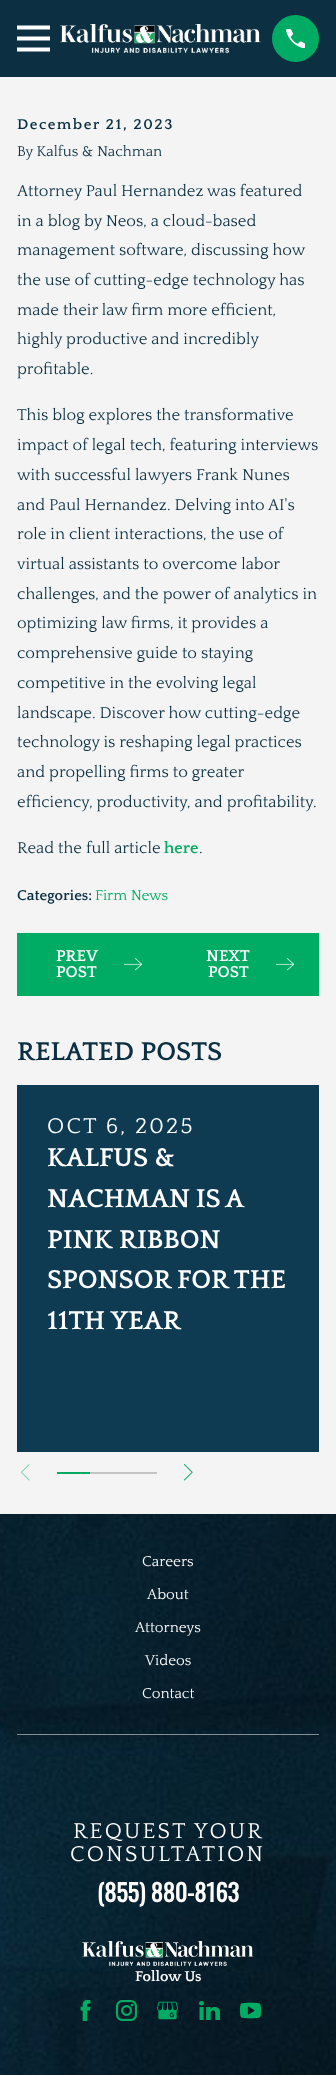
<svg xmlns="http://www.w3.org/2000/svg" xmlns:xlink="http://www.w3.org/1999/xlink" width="336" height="2075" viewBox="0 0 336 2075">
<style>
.cls-1{font:bold 15px Quattrocento;letter-spacing:1.5px;fill:#0c3042}
.cls-2{font:15px Quattrocento;fill:#0c3042}
.cls-3{font:16.5px Quattrocento;fill:#0c3042}
.cls-4{font:bold 16.5px Quattrocento;fill:#00ac64}
.cls-5{font:bold 15px Quattrocento;fill:#0c3042}
.cls-6{font:15px Quattrocento;fill:#00ac64}
.cls-7{font:bold 16.5px Quattrocento;fill:#ffffff}
.cls-8{font:bold 27px Quattrocento;fill:#0c3042}
.cls-9{font:22.5px Quattrocento;letter-spacing:2.25px;fill:#ffffff}
.cls-10{font:bold 27px Quattrocento;fill:#ffffff}
.cls-11{font:15px Quattrocento;fill:#ffffff}
.cls-12{font:bold 24px Oswald;fill:#ffffff}
.cls-13{font:bold 15px Quattrocento;fill:#ffffff}
</style>
<rect width="100%" height="100%" fill="#f4f4f4"/>
<rect fill="#0c3042" x="0" y="0" width="336" height="77"/>
<path fill="#ffffff" d="M17 25.5V29.5H50V25.5ZM17 36.5V40.5H50V36.5ZM17 47.5V51.5H50V47.5Z"/>
<image xlink:href="image0.png" x="60" y="24" width="201" height="29"/>
<circle fill="#00ac64" cx="295.5" cy="38.5" r="23.5"/>
<image xlink:href="image1.png" x="286" y="29" width="19" height="19"/>
<rect fill="#00ac64" x="17" y="933" width="302" height="63"/>
<image xlink:href="image2.png" x="124" y="958" width="18" height="13"/>
<image xlink:href="image3.png" x="276" y="958" width="18" height="13"/>
<rect fill="#0e3b52" x="17" y="1085" width="302" height="367"/>
<image xlink:href="image4.png" x="20" y="1464" width="10" height="17"/>
<rect fill="#00ac64" x="57" y="1472" width="33" height="2"/>
<rect fill="#c3c3c3" x="90" y="1472" width="67" height="2"/>
<image xlink:href="image5.png" x="183" y="1464" width="10" height="17"/>
<image xlink:href="image6.png" x="0" y="1514" width="336" height="561"/>
<rect fill="#ffffff" fill-opacity="0.5" x="17" y="1734" width="302" height="1"/>
<image xlink:href="image7.png" x="82" y="1941" width="172" height="25"/>
<image xlink:href="image8.png" x="80" y="2000" width="11" height="21"/>
<image xlink:href="image9.png" x="116" y="2000" width="21" height="21"/>
<image xlink:href="image10.png" x="157" y="2001" width="21" height="19"/>
<image xlink:href="image11.png" x="199" y="2001" width="21" height="19"/>
<image xlink:href="image12.png" x="240" y="2002" width="21" height="17"/>
<text class="cls-1" x="17" y="129">December 21, 2023</text>
<text class="cls-2" x="17" y="156">By Kalfus &amp; Nachman</text>
<text class="cls-3"><tspan x="17" y="196">Attorney Paul Hernandez was featured</tspan><tspan x="17" y="226">in a blog by Neos, a cloud-based</tspan><tspan x="17" y="255">management software, discussing how</tspan><tspan x="17" y="285">the use of cutting-edge technology has</tspan><tspan x="17" y="315">made their law firm more efficient,</tspan><tspan x="17" y="344">highly productive and incredibly</tspan><tspan x="17" y="374">profitable.</tspan></text>
<text class="cls-3"><tspan x="17" y="420">This blog explores the transformative</tspan><tspan x="17" y="450">impact of legal tech, featuring interviews</tspan><tspan x="17" y="480">with successful lawyers Frank Nunes</tspan><tspan x="17" y="510">and Paul Hernandez. Delving into AI's</tspan><tspan x="17" y="539">role in client interactions, the use of</tspan><tspan x="17" y="569">virtual assistants to overcome labor</tspan><tspan x="17" y="599">challenges, and the power of analytics in</tspan><tspan x="17" y="628">optimizing law firms, it provides a</tspan><tspan x="17" y="658">comprehensive guide to staying</tspan><tspan x="17" y="688">competitive in the evolving legal</tspan><tspan x="17" y="718">landscape. Discover how cutting-edge</tspan><tspan x="17" y="747">technology is reshaping legal practices</tspan><tspan x="17" y="777">and propelling firms to greater</tspan><tspan x="17" y="807">efficiency, productivity, and profitability.</tspan></text>
<text class="cls-3" x="17" y="853">Read the full article</text>
<text class="cls-4" x="164" y="853">here</text>
<text class="cls-3" x="199" y="853">.</text>
<text class="cls-5" x="17" y="900">Categories:</text>
<text class="cls-6" x="95" y="900">Firm News</text>
<text class="cls-7"><tspan x="56" y="961">PREV</tspan><tspan x="56" y="977">POST</tspan></text>
<text class="cls-7" x="206" y="961">NEXT</text>
<text class="cls-7" x="208" y="977">POST</text>
<text class="cls-8" x="17" y="1060">RELATED POSTS</text>
<text class="cls-9" x="47" y="1133">OCT 6, 2025</text>
<text class="cls-10"><tspan x="47" y="1166">KALFUS &amp;</tspan><tspan x="47" y="1207" word-spacing="-1">NACHMAN IS A</tspan><tspan x="47" y="1248">PINK RIBBON</tspan><tspan x="47" y="1288">SPONSOR FOR THE</tspan><tspan x="47" y="1329">11TH YEAR</tspan></text>
<text class="cls-11" x="142" y="1566">Careers</text>
<text class="cls-11" x="147" y="1599">About</text>
<text class="cls-11" x="135" y="1632">Attorneys</text>
<text class="cls-11" x="145" y="1665">Videos</text>
<text class="cls-11" x="142" y="1698">Contact</text>
<text class="cls-9" x="73" y="1838">REQUEST YOUR</text>
<text class="cls-9" x="70" y="1861">CONSULTATION</text>
<text class="cls-12" x="97" y="1902">(855) 880-8163</text>
<text class="cls-13" x="135" y="1981">Follow Us</text>
</svg>
